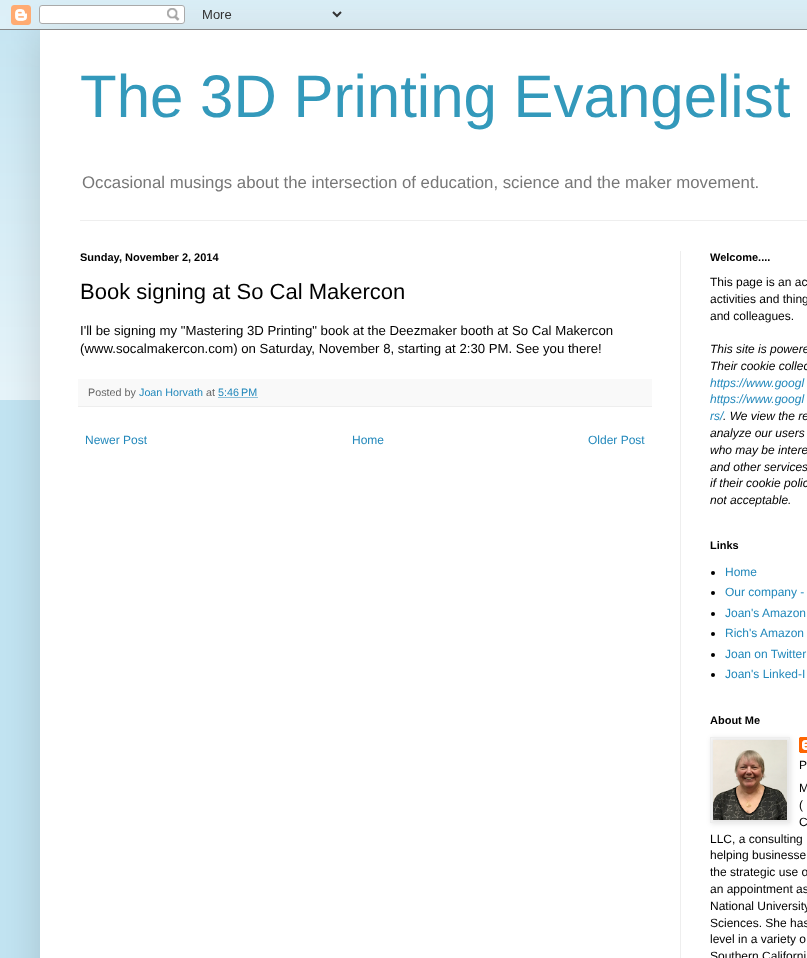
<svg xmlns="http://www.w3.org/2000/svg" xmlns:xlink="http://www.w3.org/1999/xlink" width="807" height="958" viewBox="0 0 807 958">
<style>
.cls-1{font:60px Liberation Sans;fill:#3399bb}
.cls-2{font:16.8px Liberation Sans;fill:#777777}
.cls-3{font:bold 11px Liberation Sans;fill:#000000}
.cls-4{font:22px Liberation Sans;fill:#000000}
.cls-5{font:13.2px Liberation Sans;fill:#000000}
.cls-6{font:10.75px Liberation Sans;fill:#666666}
.cls-7{font:10.75px Liberation Sans;fill:#2288bb}
.cls-8{font:12px Liberation Sans;fill:#2288bb}
.cls-9{font:12px Liberation Sans;fill:#000000}
.cls-10{font:italic 12px Liberation Sans;fill:#000000}
.cls-11{font:italic 12px Liberation Sans;fill:#2288bb}
</style>
<rect width="100%" height="100%" fill="#c2e4f2"/>
<image xlink:href="image1.png" x="0" y="10" width="807" height="390"/>
<rect fill="#000000" fill-opacity="0.15" filter="blur(20px)" x="40" y="30" width="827" height="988"/>
<image xlink:href="image0.png" x="0" y="0" width="807" height="30"/>
<rect fill="#ffffff" x="40" y="30" width="767" height="928"/>
<rect fill="#eeeeee" x="80" y="220" width="727" height="1"/>
<rect fill="#eeeeee" x="680" y="251" width="1" height="707"/>
<rect fill="#f9f9f9" x="78" y="379" width="574" height="27"/>
<rect fill="#eeeeee" x="78" y="406" width="574" height="1"/>
<path fill="none" stroke="#2288bb" stroke-dasharray="1 1" d="M218.5 397.5H257.5"/>
<circle fill="#000000" cx="713" cy="573" r="2"/>
<circle fill="#000000" cx="713" cy="593" r="2"/>
<circle fill="#000000" cx="713" cy="614" r="2"/>
<circle fill="#000000" cx="713" cy="634" r="2"/>
<circle fill="#000000" cx="713" cy="655" r="2"/>
<circle fill="#000000" cx="713" cy="675" r="2"/>
<image xlink:href="image3.png" x="799" y="737" width="8" height="16"/>
<rect fill="#000000" fill-opacity="0.1" filter="blur(2.5px)" x="711" y="738" width="80" height="86"/>
<rect fill="none" stroke="#eeeeee" x="710.5" y="737.5" width="79" height="85"/>
<image xlink:href="image2.png" x="713" y="740" width="74" height="80"/>
<text class="cls-1" x="80" y="117">The 3D Printing Evangelist</text>
<text class="cls-2" x="82" y="188">Occasional musings about the intersection of education, science and the maker movement.</text>
<text class="cls-3" x="80" y="261">Sunday, November 2, 2014</text>
<text class="cls-4" x="80" y="299">Book signing at So Cal Makercon</text>
<text class="cls-5"><tspan x="80" y="335">I'll be signing my "Mastering 3D Printing" book at the Deezmaker booth at So Cal Makercon</tspan><tspan x="80" y="353">(www.socalmakercon.com) on Saturday, November 8, starting at 2:30 PM. See you there!</tspan></text>
<text class="cls-6" x="88" y="396">Posted by</text>
<text class="cls-7" x="139" y="396">Joan Horvath</text>
<text class="cls-6" x="206" y="396">at</text>
<text class="cls-7" x="218" y="396">5:46 PM</text>
<text class="cls-8" x="85" y="444">Newer Post</text>
<text class="cls-8" x="352" y="444">Home</text>
<text class="cls-8" x="588" y="444">Older Post</text>
<text class="cls-3" x="710" y="261">Welcome....</text>
<text class="cls-9"><tspan x="710" y="286">This page is an ac</tspan><tspan x="710" y="303">activities and thing</tspan><tspan x="710" y="320">and colleagues.</tspan></text>
<text class="cls-10"><tspan x="710" y="353">This site is powere</tspan><tspan x="710" y="370">Their cookie collec</tspan></text>
<text class="cls-11"><tspan x="710" y="387">https://www.googl</tspan><tspan x="710" y="403">https://www.googl</tspan><tspan x="710" y="420">rs/</tspan></text>
<text class="cls-10" x="723" y="420">. We view the re</text>
<text class="cls-10"><tspan x="710" y="437">analyze our users</tspan><tspan x="710" y="454">who may be intere</tspan><tspan x="710" y="471">and other services</tspan><tspan x="710" y="487">if their cookie polic</tspan><tspan x="710" y="504">not acceptable.</tspan></text>
<text class="cls-3" x="710" y="549">Links</text>
<text class="cls-8"><tspan x="725" y="576">Home</tspan><tspan x="725" y="596">Our company -</tspan><tspan x="725" y="617">Joan's Amazon</tspan><tspan x="725" y="637">Rich's Amazon</tspan><tspan x="725" y="658">Joan on Twitter</tspan><tspan x="725" y="678">Joan's Linked-I</tspan></text>
<text class="cls-3" x="710" y="724">About Me</text>
<text class="cls-9"><tspan x="799" y="769">P</tspan><tspan x="799" y="792">M</tspan><tspan x="799" y="809">(</tspan><tspan x="799" y="826">C</tspan></text>
<text class="cls-9"><tspan x="710" y="843">LLC, a consulting</tspan><tspan x="710" y="859">helping businesse</tspan><tspan x="710" y="876">the strategic use o</tspan><tspan x="710" y="893">an appointment as</tspan><tspan x="710" y="910">National University</tspan><tspan x="710" y="927">Sciences. She has</tspan><tspan x="710" y="943">level in a variety o</tspan><tspan x="710" y="960">Southern Californi</tspan></text>
</svg>
